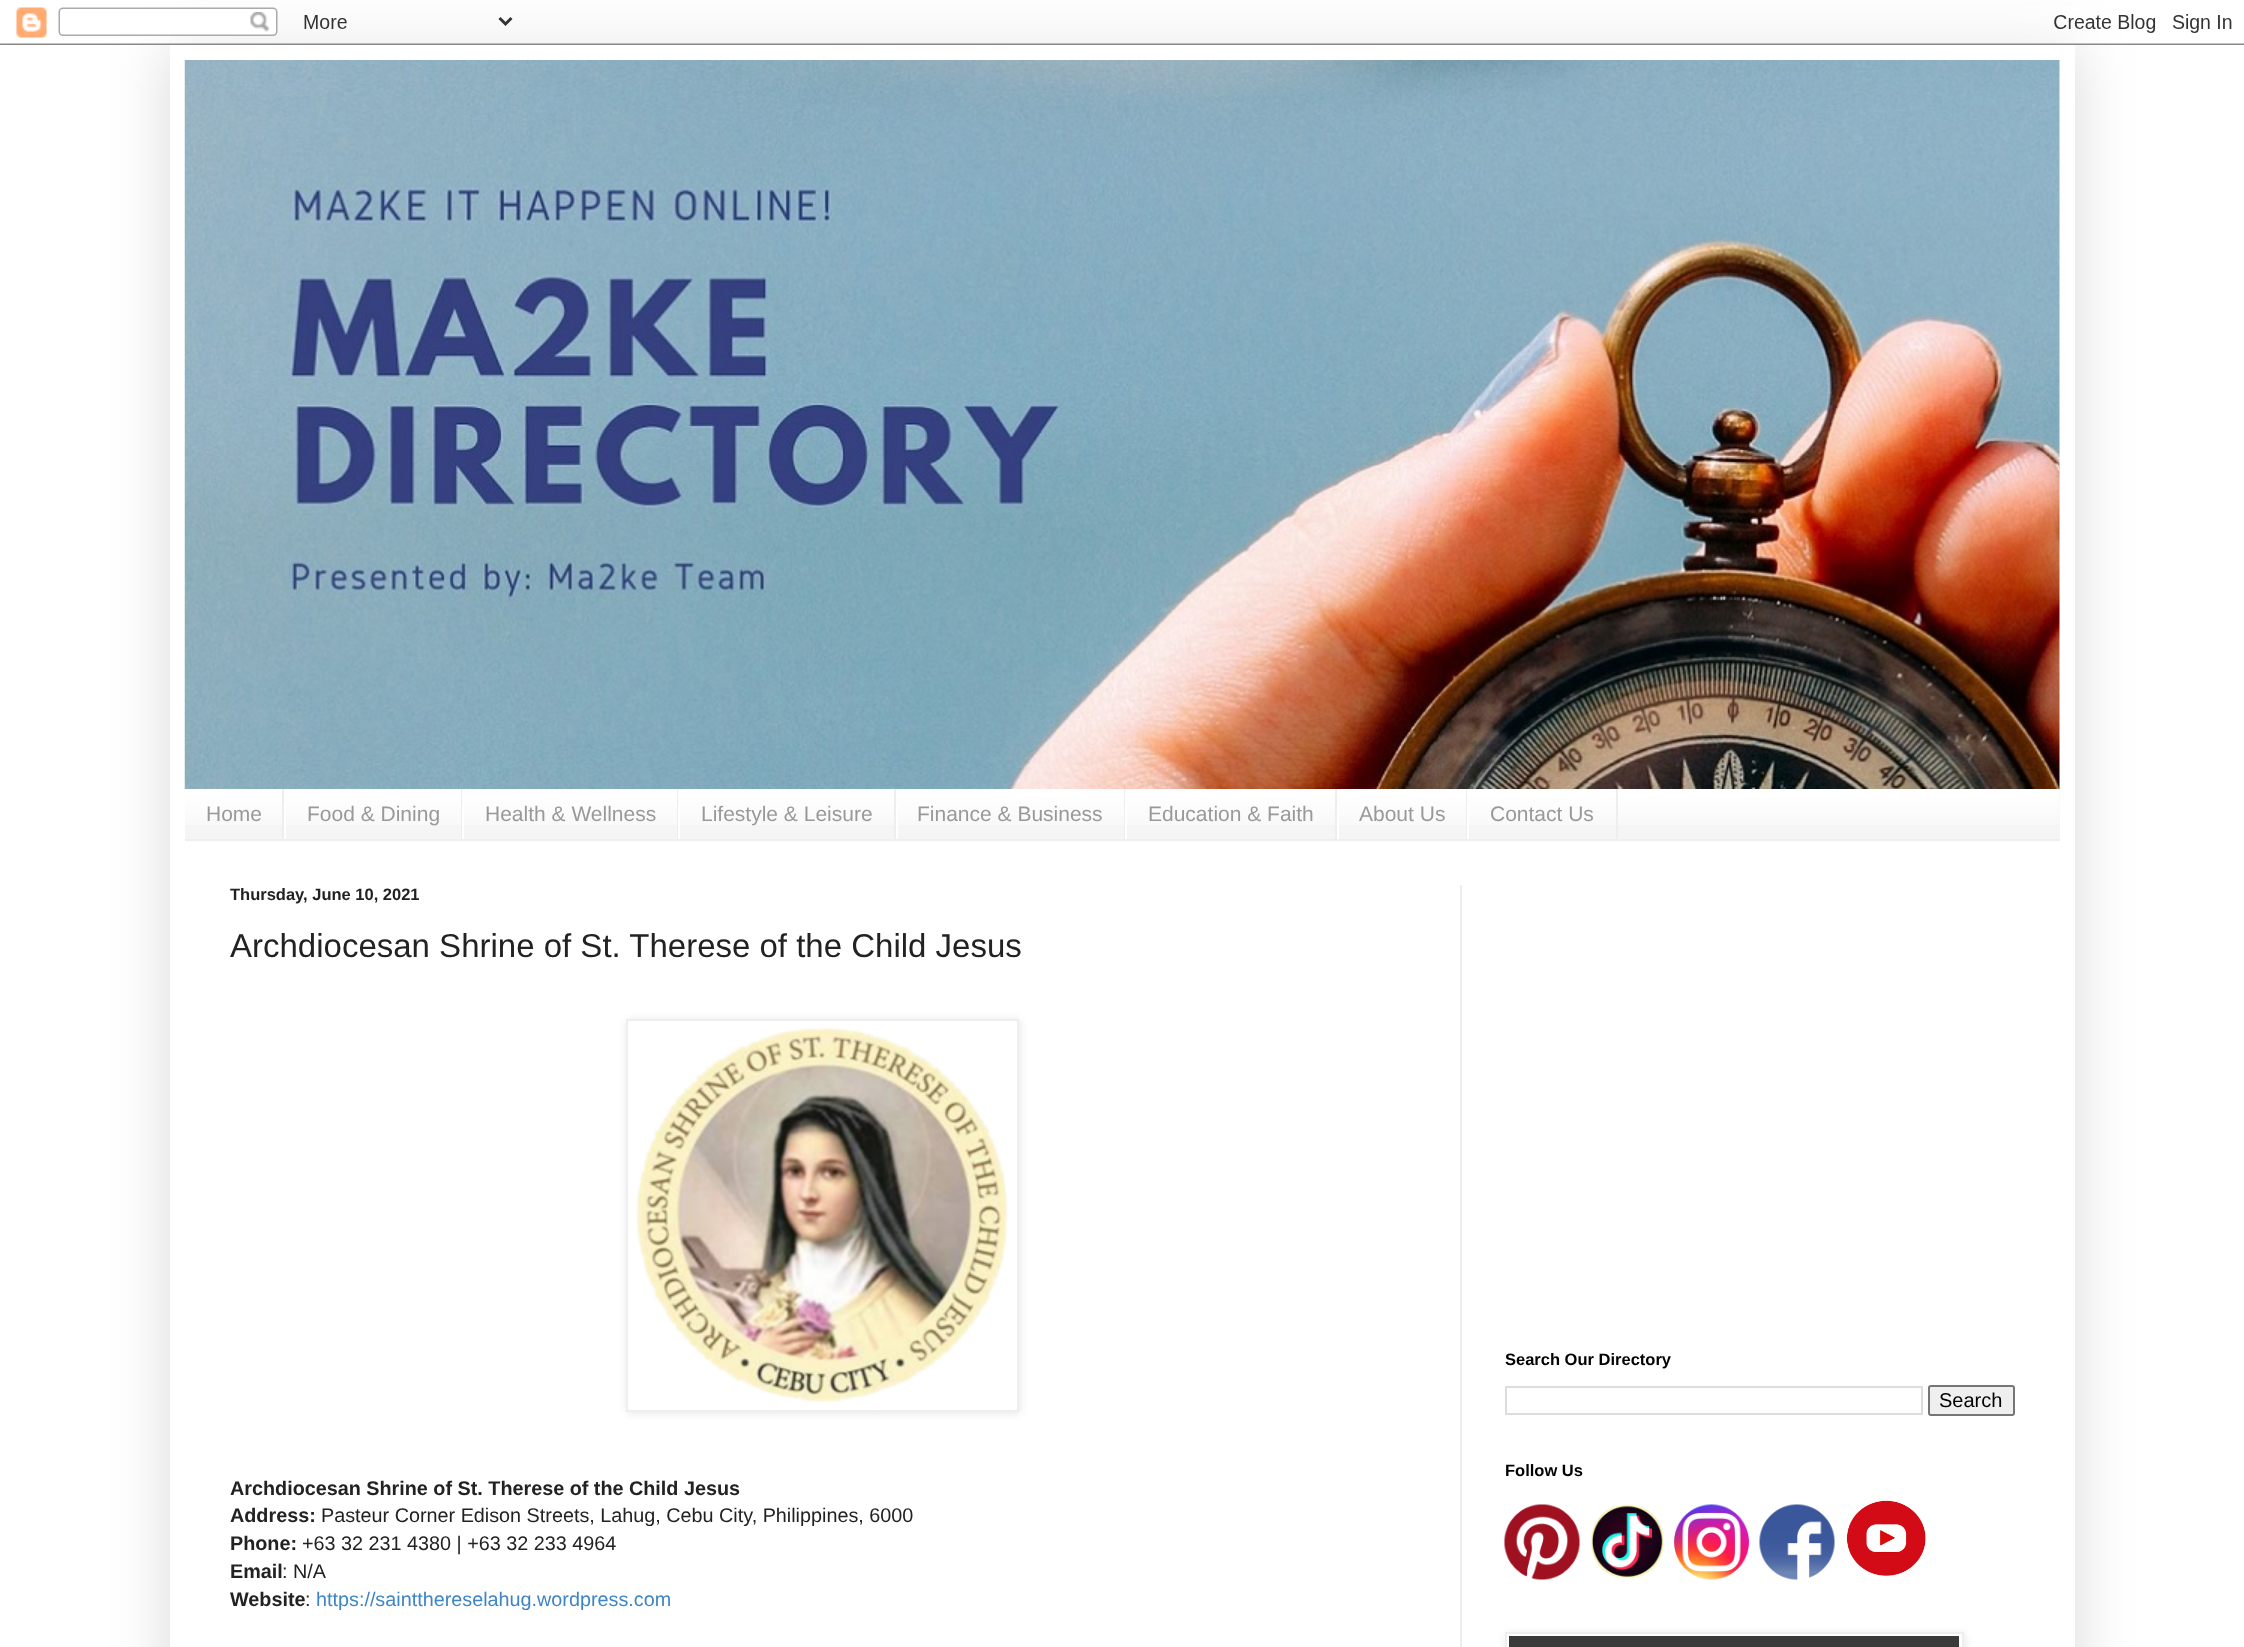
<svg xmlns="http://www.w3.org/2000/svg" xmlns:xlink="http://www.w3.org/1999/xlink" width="2244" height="1647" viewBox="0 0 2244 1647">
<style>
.cls-1{font:21px Liberation Sans;fill:#999999}
.cls-2{font:bold 16.5px Liberation Sans;fill:#222222}
.cls-3{font:33px Liberation Sans;fill:#222222}
.cls-4{font:bold 19.8px Liberation Sans;fill:#222222}
.cls-5{font:19.8px Liberation Sans;fill:#222222}
.cls-6{font:19.8px Liberation Sans;fill:#3d85c6}
.cls-7{font:bold 16.5px Liberation Sans;fill:#000000}
.cls-8{font:20px Liberation Sans;fill:#000000}
</style>
<rect width="100%" height="100%" fill="#ffffff"/>
<rect fill="#000000" fill-opacity="0.15" filter="blur(30px)" x="170" y="45" width="1905" height="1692"/>
<image xlink:href="image0.png" x="0" y="7" width="2244" height="38"/>
<rect fill="#ffffff" x="170" y="45" width="1905" height="1602"/>
<image xlink:href="image1.png" x="184" y="60" width="1876" height="729"/>
<rect fill="#f5f5f5" x="185" y="789" width="1875" height="50"/>
<image xlink:href="image2.png" x="185" y="789" width="1875" height="36"/>
<rect fill="#eeeeee" x="185" y="839" width="1875" height="2"/>
<rect fill="#eeeeee" x="282" y="789" width="2" height="50"/>
<rect fill="#eeeeee" x="461" y="789" width="1" height="50"/>
<rect fill="#ffffff" x="284" y="805" width="2" height="34"/>
<rect fill="#eeeeee" x="677" y="789" width="1" height="50"/>
<rect fill="#ffffff" x="462" y="805" width="2" height="34"/>
<rect fill="#eeeeee" x="894" y="789" width="2" height="50"/>
<rect fill="#ffffff" x="678" y="805" width="2" height="34"/>
<rect fill="#eeeeee" x="1124" y="789" width="1" height="50"/>
<rect fill="#ffffff" x="896" y="805" width="2" height="34"/>
<rect fill="#eeeeee" x="1335" y="789" width="2" height="50"/>
<rect fill="#ffffff" x="1125" y="805" width="2" height="34"/>
<rect fill="#eeeeee" x="1466" y="789" width="1" height="50"/>
<rect fill="#ffffff" x="1337" y="805" width="2" height="34"/>
<rect fill="#eeeeee" x="1616" y="789" width="2" height="50"/>
<rect fill="#ffffff" x="1467" y="805" width="2" height="34"/>
<rect fill="#eeeeee" x="1460" y="885" width="2" height="762"/>
<rect fill="#000000" fill-opacity="0.1" filter="blur(4px)" x="627" y="1020" width="393" height="393"/>
<rect fill="#ffffff" stroke="#eeeeee" stroke-width="2" x="627" y="1020" width="391" height="391"/>
<image xlink:href="image3.png" x="636" y="1027" width="372" height="376"/>
<rect fill="none" stroke="#dddddd" stroke-width="2" x="1506" y="1387" width="416" height="27"/>
<rect fill="#efefef" stroke="#767676" stroke-width="2" x="1929" y="1386" width="85" height="29" rx="2"/>
<image xlink:href="image4.png" x="1504" y="1504" width="76" height="76"/>
<image xlink:href="image5.png" x="1590" y="1504" width="75" height="75"/>
<image xlink:href="image6.png" x="1674" y="1504" width="75" height="76"/>
<image xlink:href="image7.png" x="1759" y="1504" width="76" height="76"/>
<image xlink:href="image8.png" x="1846" y="1500" width="80" height="76"/>
<rect fill="#000000" fill-opacity="0.1" filter="blur(4px)" x="1506" y="1634" width="459" height="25"/>
<rect fill="#ffffff" stroke="#eeeeee" stroke-width="2" x="1506" y="1633" width="457" height="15"/>
<rect fill="#3a3a3a" x="1509" y="1636" width="450" height="11"/>
<text class="cls-1" x="206" y="821">Home</text>
<text class="cls-1" x="307" y="821">Food &amp; Dining</text>
<text class="cls-1" x="485" y="821">Health &amp; Wellness</text>
<text class="cls-1" x="701" y="821">Lifestyle &amp; Leisure</text>
<text class="cls-1" x="917" y="821">Finance &amp; Business</text>
<text class="cls-1" x="1148" y="821">Education &amp; Faith</text>
<text class="cls-1" x="1359" y="821">About Us</text>
<text class="cls-1" x="1490" y="821">Contact Us</text>
<text class="cls-2" x="230" y="900">Thursday, June 10, 2021</text>
<text class="cls-3" x="230" y="957">Archdiocesan Shrine of St. Therese of the Child Jesus</text>
<text class="cls-4"><tspan x="230" y="1495">Archdiocesan Shrine of St. Therese of the Child Jesus</tspan><tspan x="230" y="1522">Address:</tspan></text>
<text class="cls-5" x="321" y="1522">Pasteur Corner Edison Streets, Lahug, Cebu City, Philippines, 6000</text>
<text class="cls-4" x="230" y="1550">Phone:</text>
<text class="cls-5" x="302" y="1550">+63 32 231 4380 | +63 32 233 4964</text>
<text class="cls-4" x="230" y="1578">Email</text>
<text class="cls-5" x="282" y="1578">: N/A</text>
<text class="cls-4" x="230" y="1606">Website</text>
<text class="cls-5" x="305" y="1606">:</text>
<text class="cls-6" x="316" y="1606">https://saintthereselahug.wordpress.com</text>
<text class="cls-7" x="1505" y="1365">Search Our Directory</text>
<text class="cls-8" x="1939" y="1407">Search</text>
<text class="cls-7" x="1505" y="1476">Follow Us</text>
</svg>
